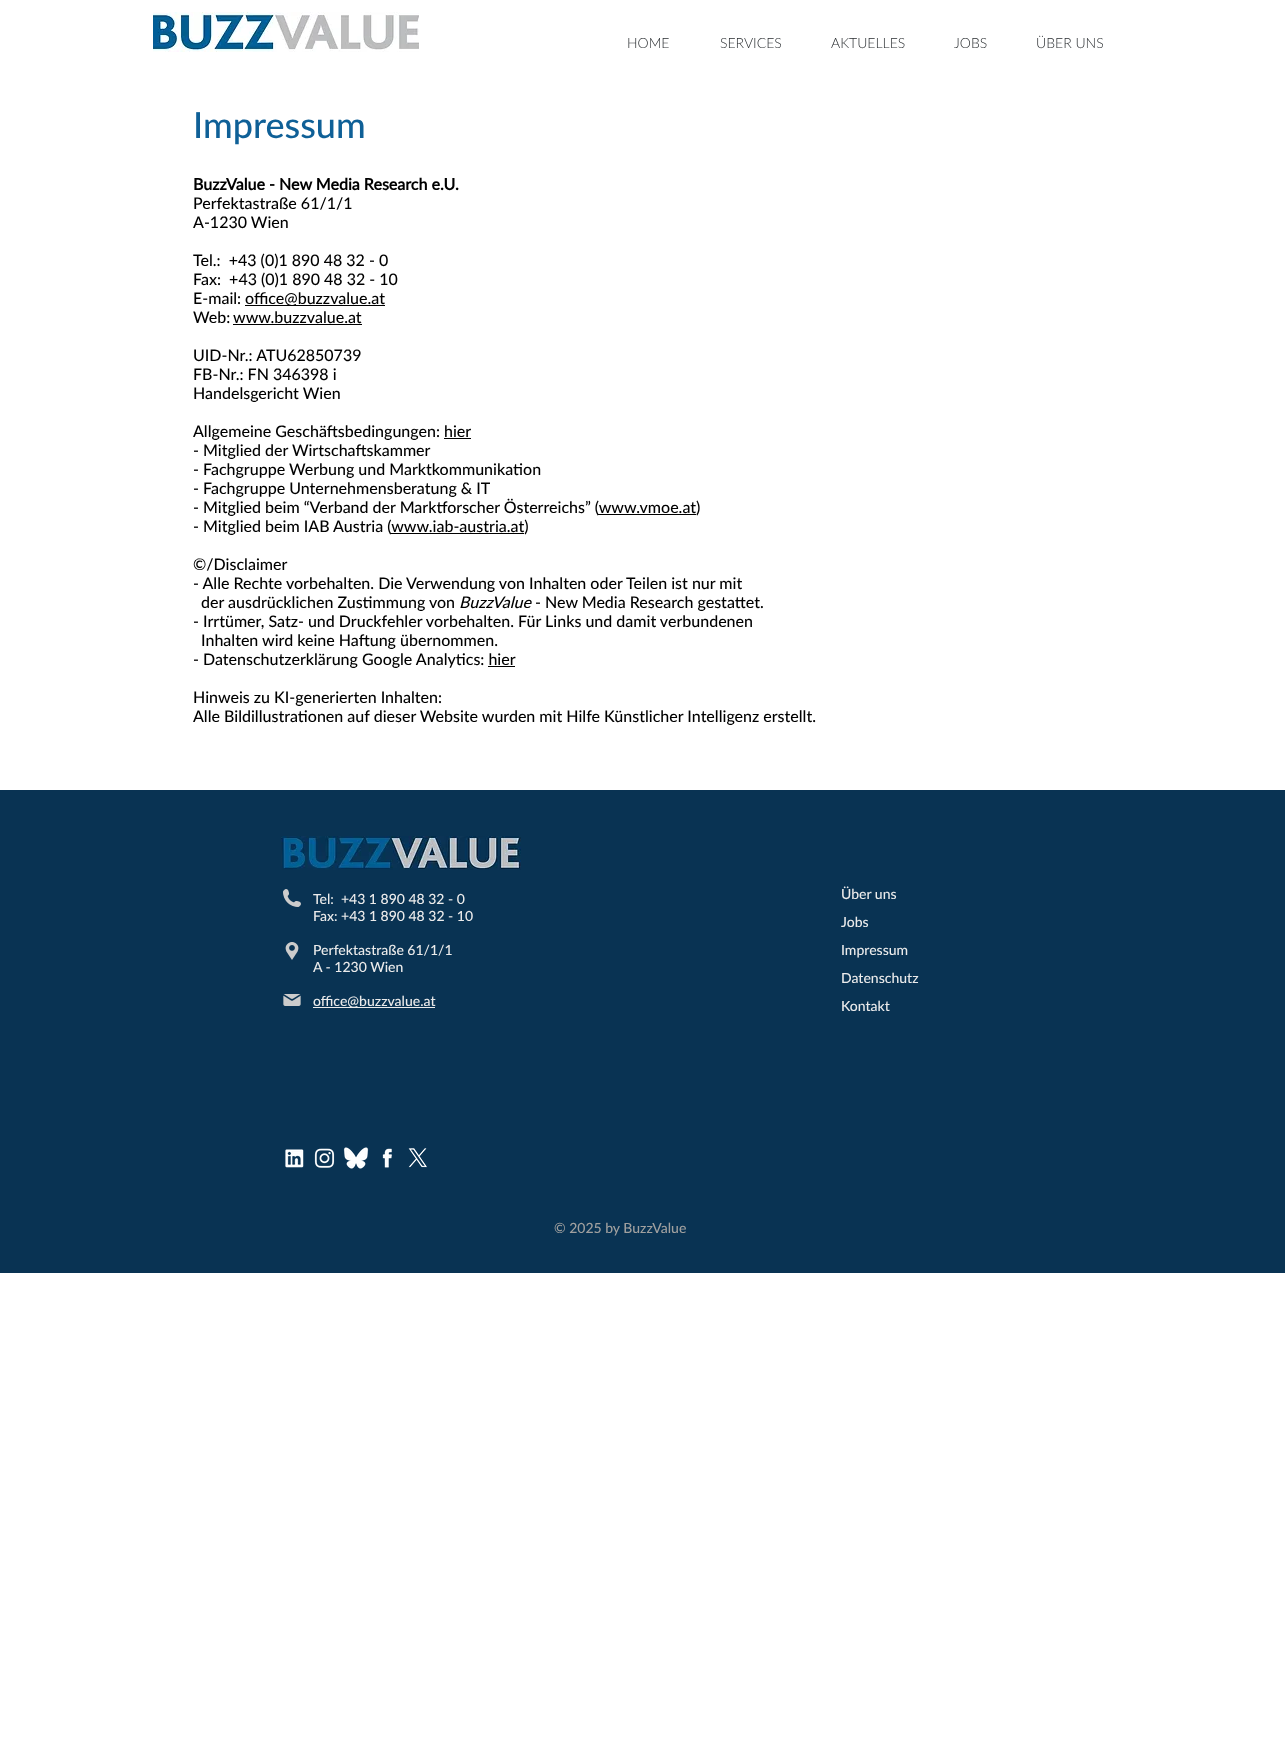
<svg xmlns="http://www.w3.org/2000/svg" xmlns:xlink="http://www.w3.org/1999/xlink" width="1285" height="1751" viewBox="0 0 1285 1751">
<style>
.cls-1{font:300 14px Lato;fill:#292d30}
.cls-2{font:500 36px Lato;fill:#0f6097}
.cls-3{font:bold 16px Lato;fill:#000000}
.cls-4{font:500 16px Lato;fill:#000000}
.cls-5{font:italic 500 16px Lato;fill:#000000}
.cls-6{font:500 14px Lato;fill:#ebebeb}
.cls-7{font:500 14px Lato;fill:#a0a09f}
</style>
<rect width="100%" height="100%" fill="#ffffff"/>
<image xlink:href="image0.png" x="153" y="12" width="266" height="40"/>
<rect fill="#000000" x="245" y="305" width="140" height="1"/>
<rect fill="#000000" x="233" y="324" width="129" height="1"/>
<rect fill="#000000" x="444" y="438" width="27" height="1"/>
<rect fill="#000000" x="598" y="514" width="98" height="1"/>
<rect fill="#000000" x="391" y="533" width="133" height="1"/>
<rect fill="#000000" x="488" y="666" width="27" height="1"/>
<rect fill="#093353" x="0" y="790" width="1285" height="483"/>
<image xlink:href="image1.png" x="281" y="836" width="240" height="34"/>
<image xlink:href="image2.png" x="283" y="889" width="18" height="18"/>
<rect fill="#ebebeb" x="313" y="1007" width="122" height="1"/>
<image xlink:href="image3.png" x="285" y="942" width="14" height="18"/>
<image xlink:href="image4.png" x="283" y="994" width="18" height="12"/>
<image xlink:href="image5.png" x="285" y="1149" width="19" height="19"/>
<image xlink:href="image6.png" x="314" y="1148" width="21" height="20"/>
<image xlink:href="image7.png" x="343" y="1147" width="26" height="22"/>
<image xlink:href="image8.png" x="382" y="1148" width="10" height="20"/>
<image xlink:href="image9.png" x="408" y="1148" width="19" height="20"/>
<text class="cls-1" x="627" y="48">HOME</text>
<text class="cls-1" x="720" y="48">SERVICES</text>
<text class="cls-1" x="831" y="48">AKTUELLES</text>
<text class="cls-1" x="954" y="48">JOBS</text>
<text class="cls-1" x="1036" y="48">ÜBER UNS</text>
<text class="cls-2" x="193" y="138">Impressum</text>
<text class="cls-3" x="193" y="190">BuzzValue - New Media Research e.U.</text>
<text class="cls-4"><tspan x="193" y="209">Perfektastraße 61/1/1</tspan><tspan x="193" y="228">A-1230 Wien</tspan></text>
<text class="cls-4" xml:space="preserve"><tspan x="193" y="266">Tel.:  +43 (0)1 890 48 32 - 0</tspan><tspan x="193" y="285">Fax:  +43 (0)1 890 48 32 - 10</tspan><tspan x="193" y="304">E-mail:</tspan></text>
<text class="cls-4" x="245" y="304">office@buzzvalue.at</text>
<text class="cls-4" x="193" y="323">Web:</text>
<text class="cls-4" x="233" y="323">www.buzzvalue.at</text>
<text class="cls-4"><tspan x="193" y="361">UID-Nr.: ATU62850739</tspan><tspan x="193" y="380">FB-Nr.: FN 346398 i</tspan><tspan x="193" y="399">Handelsgericht Wien</tspan></text>
<text class="cls-4"><tspan x="193" y="437">Allgemeine Geschäftsbedingungen: hier</tspan><tspan x="193" y="456">- Mitglied der Wirtschaftskammer</tspan><tspan x="193" y="475">- Fachgruppe Werbung und Marktkommunikation</tspan><tspan x="193" y="494">- Fachgruppe Unternehmensberatung &amp; IT</tspan><tspan x="193" y="513">- Mitglied beim “Verband der Marktforscher Österreichs” (www.vmoe.at)</tspan><tspan x="193" y="532">- Mitglied beim IAB Austria (www.iab-austria.at)</tspan></text>
<text class="cls-4"><tspan x="193" y="570">©/Disclaimer</tspan><tspan x="193" y="589">- Alle Rechte vorbehalten. Die Verwendung von Inhalten oder Teilen ist nur mit</tspan></text>
<text class="cls-4" x="201" y="608">der ausdrücklichen Zustimmung von</text>
<text class="cls-5" x="459" y="608">BuzzValue</text>
<text class="cls-4" x="535" y="608">- New Media Research gestattet.</text>
<text class="cls-4" x="193" y="627">- Irrtümer, Satz- und Druckfehler vorbehalten. Für Links und damit verbundenen</text>
<text class="cls-4" x="201" y="646">Inhalten wird keine Haftung übernommen.</text>
<text class="cls-4" x="193" y="665">- Datenschutzerklärung Google Analytics: hier</text>
<text class="cls-4"><tspan x="193" y="703">Hinweis zu KI-generierten Inhalten:</tspan><tspan x="193" y="722">Alle Bildillustrationen auf dieser Website wurden mit Hilfe Künstlicher Intelligenz erstellt.</tspan></text>
<text class="cls-6" xml:space="preserve"><tspan x="313" y="904">Tel:  +43 1 890 48 32 - 0</tspan><tspan x="313" y="921">Fax: +43 1 890 48 32 - 10</tspan></text>
<text class="cls-6"><tspan x="313" y="955">Perfektastraße 61/1/1</tspan><tspan x="313" y="972">A - 1230 Wien</tspan></text>
<text class="cls-6" x="313" y="1006">office@buzzvalue.at</text>
<text class="cls-6" x="841" y="899">Über uns</text>
<text class="cls-6" x="841" y="927">Jobs</text>
<text class="cls-6" x="841" y="955">Impressum</text>
<text class="cls-6" x="841" y="983">Datenschutz</text>
<text class="cls-6" x="841" y="1011">Kontakt</text>
<text class="cls-7" x="554" y="1233">© 2025 by BuzzValue</text>
</svg>
